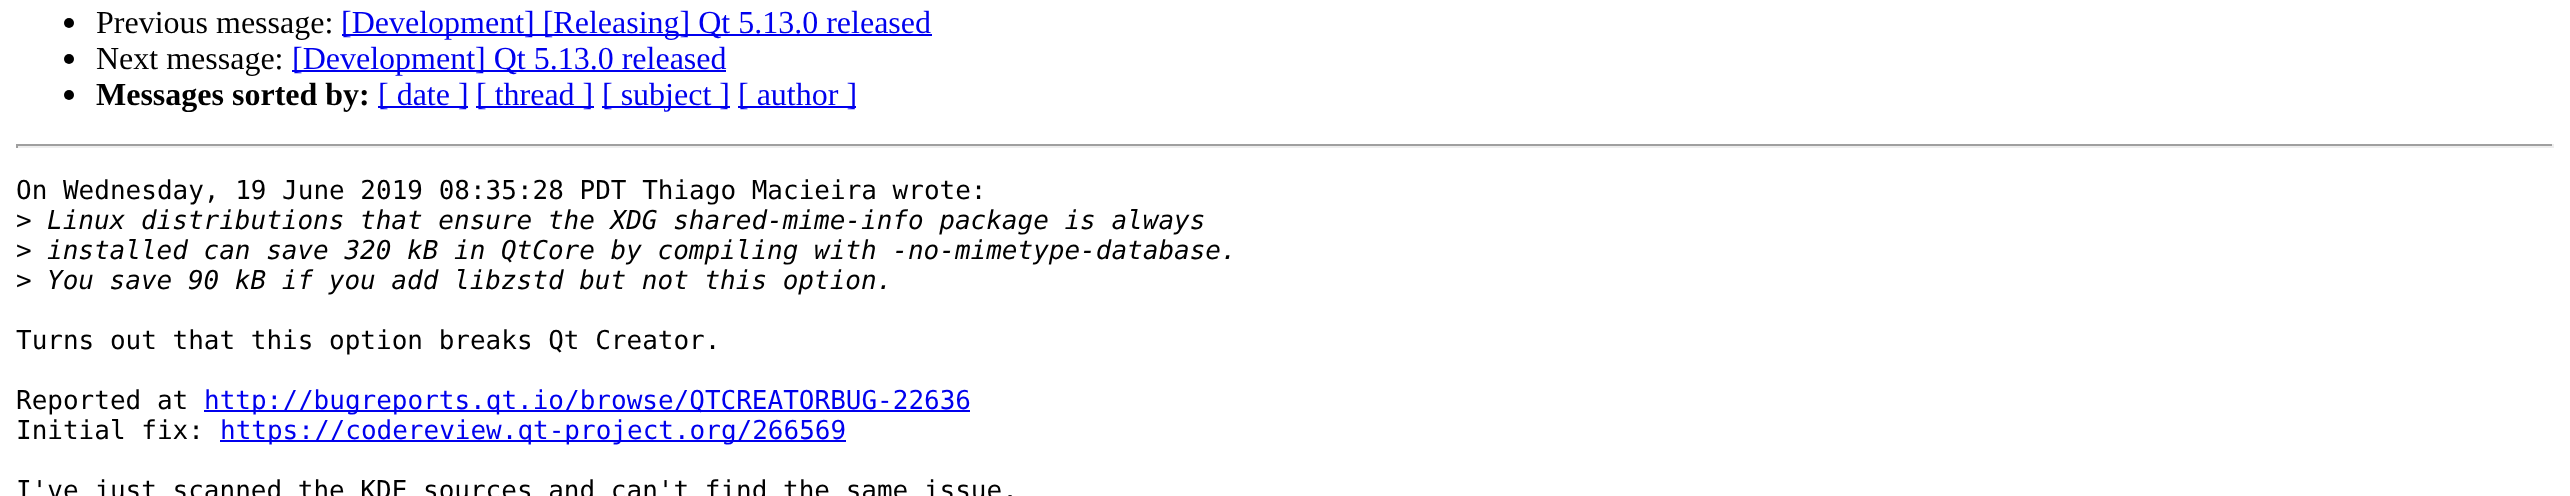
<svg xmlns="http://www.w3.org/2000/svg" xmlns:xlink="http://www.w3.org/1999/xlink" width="2570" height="496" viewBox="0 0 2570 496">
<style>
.cls-1{font:32px Liberation Serif;fill:#000000}
.cls-2{font:32px Liberation Serif;fill:#0000ee}
.cls-3{font:bold 32px Liberation Serif;fill:#000000}
.cls-4{font:26px DejaVu Sans Mono;fill:#000000}
.cls-5{font:italic 26px DejaVu Sans Mono;fill:#000000}
.cls-6{font:26px DejaVu Sans Mono;fill:#0000ee}
</style>
<rect width="100%" height="100%" fill="#ffffff"/>
<circle fill="#000000" cx="69" cy="23" r="5"/>
<rect fill="#0000ee" x="342" y="34" width="590" height="2"/>
<circle fill="#000000" cx="69" cy="59" r="5"/>
<rect fill="#0000ee" x="292" y="70" width="434" height="2"/>
<circle fill="#000000" cx="69" cy="95" r="5"/>
<rect fill="#0000ee" x="378" y="106" width="90" height="2"/>
<rect fill="#0000ee" x="476" y="106" width="118" height="2"/>
<rect fill="#0000ee" x="602" y="106" width="128" height="2"/>
<rect fill="#0000ee" x="738" y="106" width="118" height="2"/>
<rect fill="#9f9f9f" x="16" y="144" width="2538" height="2"/>
<rect fill="#eeeeee" x="2552" y="144" width="2" height="4"/>
<rect fill="#eeeeee" x="16" y="146" width="2538" height="2"/>
<rect fill="#9f9f9f" x="16" y="144" width="2" height="4"/>
<rect fill="#0000ee" x="204" y="410" width="766" height="2"/>
<rect fill="#0000ee" x="220" y="440" width="626" height="2"/>
<text class="cls-1" x="96" y="33">Previous message:</text>
<text class="cls-2" x="341" y="33">[Development] [Releasing] Qt 5.13.0 released</text>
<text class="cls-1" x="96" y="69">Next message:</text>
<text class="cls-2" x="292" y="69">[Development] Qt 5.13.0 released</text>
<text class="cls-3" x="96" y="105">Messages sorted by:</text>
<text class="cls-2" x="378" y="105">[ date ]</text>
<text class="cls-2" x="476" y="105">[ thread ]</text>
<text class="cls-2" x="602" y="105">[ subject ]</text>
<text class="cls-2" x="738" y="105">[ author ]</text>
<text class="cls-4"><tspan x="16" y="199">On Wednesday, 19 June 2019 08:35:28 PDT Thiago Macieira wrote:</tspan><tspan x="16" y="229">&gt;</tspan></text>
<text class="cls-5" x="47" y="229">Linux distributions that ensure the XDG shared-mime-info package is always</text>
<text class="cls-4" x="16" y="259">&gt;</text>
<text class="cls-5" x="47" y="259">installed can save 320 kB in QtCore by compiling with -no-mimetype-database.</text>
<text class="cls-4" x="16" y="289">&gt;</text>
<text class="cls-5" x="47" y="289">You save 90 kB if you add libzstd but not this option.</text>
<text class="cls-4" x="16" y="349">Turns out that this option breaks Qt Creator.</text>
<text class="cls-4" x="16" y="409">Reported at</text>
<text class="cls-6" x="204" y="409">http://bugreports.qt.io/browse/QTCREATORBUG-22636</text>
<text class="cls-4" x="16" y="439">Initial fix:</text>
<text class="cls-6" x="220" y="439">https://codereview.qt-project.org/266569</text>
<text class="cls-4" x="16" y="499">I've just scanned the KDE sources and can't find the same issue.</text>
</svg>
